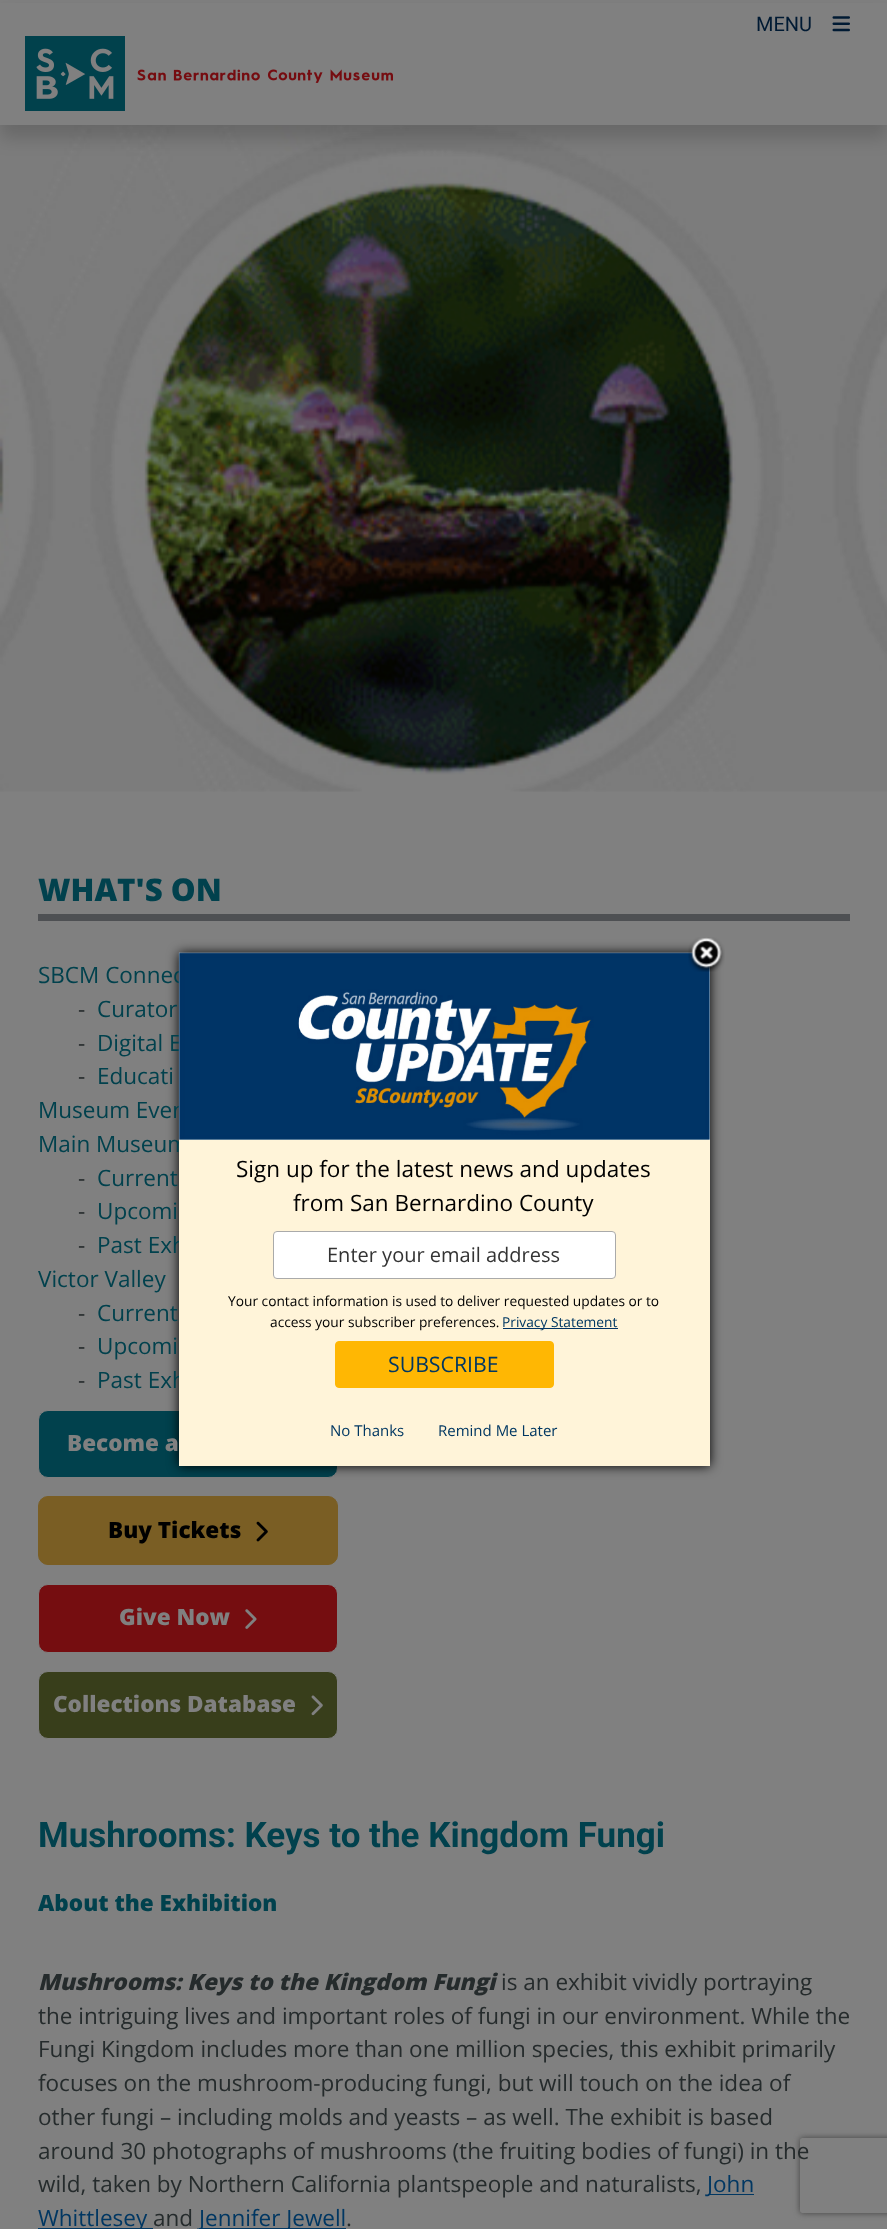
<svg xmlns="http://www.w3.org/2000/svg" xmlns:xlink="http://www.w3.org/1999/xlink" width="887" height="2229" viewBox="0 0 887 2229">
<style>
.cls-1{font:20px Roboto;fill:#001a33}
.cls-2{font:800 31.25px Open Sans;fill:#01414d}
.cls-3{font:22.5px Open Sans;fill:#01414d}
.cls-4{font:22.5px Open Sans;fill:#252b2c}
.cls-5{font:800 22.5px Open Sans;fill:#808080}
.cls-6{font:800 22.5px Open Sans;fill:#000000}
.cls-7{font:bold 35px Roboto;fill:#01414d}
.cls-8{font:800 22.5px Open Sans;fill:#01414d}
.cls-9{font:italic 800 22.5px Open Sans;fill:#252b2c}
.cls-10{font:22.5px Open Sans;fill:#013762}
.cls-11{font:22.5px Open Sans;fill:#000000}
.cls-12{font:20px Open Sans;fill:#333333}
.cls-13{font:13.75px Open Sans;fill:#000000}
.cls-14{font:13.75px Open Sans;fill:#013762}
.cls-15{font:21.25px Open Sans;fill:#013762}
.cls-16{font:15px Open Sans;fill:#013762}
</style>
<defs>
<clipPath id="clip1"><path d="M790 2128H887V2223H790ZM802.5 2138H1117.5C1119 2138 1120 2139 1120 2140.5V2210.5C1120 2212 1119 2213 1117.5 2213H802.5C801 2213 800 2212 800 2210.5V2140.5C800 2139 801 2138 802.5 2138Z" clip-rule="evenodd"/></clipPath>
</defs>
<rect width="100%" height="100%" fill="#808080"/>
<image xlink:href="image2.png" x="0" y="125" width="887" height="667"/>
<rect fill="#000000" fill-opacity="0.16" filter="blur(9px)" x="0" y="13" width="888" height="125"/>
<rect fill="#808080" x="0" y="3" width="887" height="122"/>
<image xlink:href="image0.png" x="832" y="16" width="18" height="16"/>
<image xlink:href="image1.png" x="25" y="36" width="368" height="75"/>
<rect fill="#4e5053" x="38" y="914" width="812" height="7"/>
<rect fill="#01414d" stroke="#808080" x="38.5" y="1410.5" width="299" height="67" rx="9.5"/>
<rect fill="#7a5e24" stroke="#7a5e24" x="38.5" y="1496.5" width="299" height="68" rx="9.5"/>
<image xlink:href="image3.png" x="256" y="1521" width="12" height="21"/>
<rect fill="#750d10" stroke="#808080" x="38.5" y="1584.5" width="299" height="68" rx="9.5"/>
<image xlink:href="image4.png" x="245" y="1609" width="12" height="20"/>
<rect fill="#383e1b" stroke="#808080" x="38.5" y="1671.5" width="299" height="67" rx="9.5"/>
<image xlink:href="image5.png" x="311" y="1695" width="12" height="21"/>
<rect fill="#013762" x="708" y="2194" width="46" height="1"/>
<rect fill="#013762" x="38" y="2228" width="115" height="1"/>
<rect fill="#013762" x="199" y="2228" width="147" height="1"/>
<rect fill="#000000" filter="blur(6px)" x="179" y="953" width="531" height="513"/>
<g clip-path="url(#clip1)">
<rect fill="#404040" filter="blur(3px)" x="800" y="2138" width="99" height="75" rx="2.5"/>
</g>
<text class="cls-1" x="756" y="31">MENU</text>
<text class="cls-2" x="38" y="901">WHAT'S ON</text>
<text class="cls-3" x="38" y="983">SBCM Connec</text>
<text class="cls-4" x="78" y="1017">-</text>
<text class="cls-3" x="97" y="1017">Curator</text>
<text class="cls-4" x="78" y="1051">-</text>
<text class="cls-3" x="97" y="1051">Digital E</text>
<text class="cls-4" x="78" y="1084">-</text>
<text class="cls-3" x="97" y="1084">Educati</text>
<text class="cls-3"><tspan x="38" y="1118">Museum Even</tspan><tspan x="38" y="1152">Main Museum</tspan></text>
<text class="cls-4" x="78" y="1186">-</text>
<text class="cls-3" x="97" y="1186">Current</text>
<text class="cls-4" x="78" y="1219">-</text>
<text class="cls-3" x="97" y="1219">Upcomi</text>
<text class="cls-4" x="78" y="1253">-</text>
<text class="cls-3" x="97" y="1253">Past Exh</text>
<text class="cls-3" x="38" y="1287">Victor Valley</text>
<text class="cls-4" x="78" y="1321">-</text>
<text class="cls-3" x="97" y="1321">Current</text>
<text class="cls-4" x="78" y="1354">-</text>
<text class="cls-3" x="97" y="1354">Upcomi</text>
<text class="cls-4" x="78" y="1388">-</text>
<text class="cls-3" x="97" y="1388">Past Exh</text>
<text class="cls-5" x="67" y="1451">Become a</text>
<text class="cls-6" x="108" y="1538">Buy Tickets</text>
<text class="cls-5" x="119" y="1625">Give Now</text>
<text class="cls-5" x="53" y="1712">Collections Database</text>
<text class="cls-7" x="38" y="1847">Mushrooms: Keys to the Kingdom Fungi</text>
<text class="cls-8" x="38" y="1911">About the Exhibition</text>
<text class="cls-9" x="38" y="1990">Mushrooms: Keys to the Kingdom Fungi</text>
<text class="cls-4" x="501" y="1990">is an exhibit vividly portraying</text>
<text class="cls-4"><tspan x="38" y="2024">the intriguing lives and important roles of fungi in our environment. While the</tspan><tspan x="38" y="2057">Fungi Kingdom includes more than one million species, this exhibit primarily</tspan><tspan x="38" y="2091">focuses on the mushroom-producing fungi, but will touch on the idea of</tspan><tspan x="38" y="2125">other fungi – including molds and yeasts – as well. The exhibit is based</tspan><tspan x="38" y="2159">around 30 photographs of mushrooms (the fruiting bodies of fungi) in the</tspan><tspan x="38" y="2192">wild, taken by Northern California plantspeople and naturalists,</tspan></text>
<text class="cls-10" x="707" y="2192">John</text>
<text class="cls-10" x="38" y="2226">Whittlesey</text>
<text class="cls-4" x="153" y="2226">and</text>
<text class="cls-10" x="199" y="2226">Jennifer Jewell</text>
<text class="cls-4" x="346" y="2226">.</text>
<rect fill="#fff4d9" x="179" y="953" width="531" height="513"/>
<image xlink:href="image7.png" x="178" y="952" width="532" height="188"/>
<image xlink:href="image6.png" x="688" y="937" width="37" height="35"/>
<text class="cls-11" x="236" y="1177">Sign up for the latest news and updates</text>
<text class="cls-11" x="293" y="1211">from San Bernardino County</text>
<rect fill="#ffffff" stroke="#aaaaaa" x="273.5" y="1231.5" width="342" height="47" rx="3.5"/>
<text class="cls-12" x="327" y="1262">Enter your email address</text>
<text class="cls-13" x="228" y="1306">Your contact information is used to deliver requested updates or to</text>
<text class="cls-13" x="270" y="1327">access your subscriber preferences.</text>
<rect fill="#003366" x="503" y="1328" width="115" height="1"/>
<text class="cls-14" x="502" y="1327">Privacy Statement</text>
<rect fill="#ffb703" stroke="#ffb703" x="335.5" y="1341.5" width="218" height="46" rx="3.5"/>
<text class="cls-15" x="388" y="1372">SUBSCRIBE</text>
<text class="cls-16" x="330" y="1436">No Thanks</text>
<text class="cls-16" x="438" y="1436">Remind Me Later</text>
</svg>
